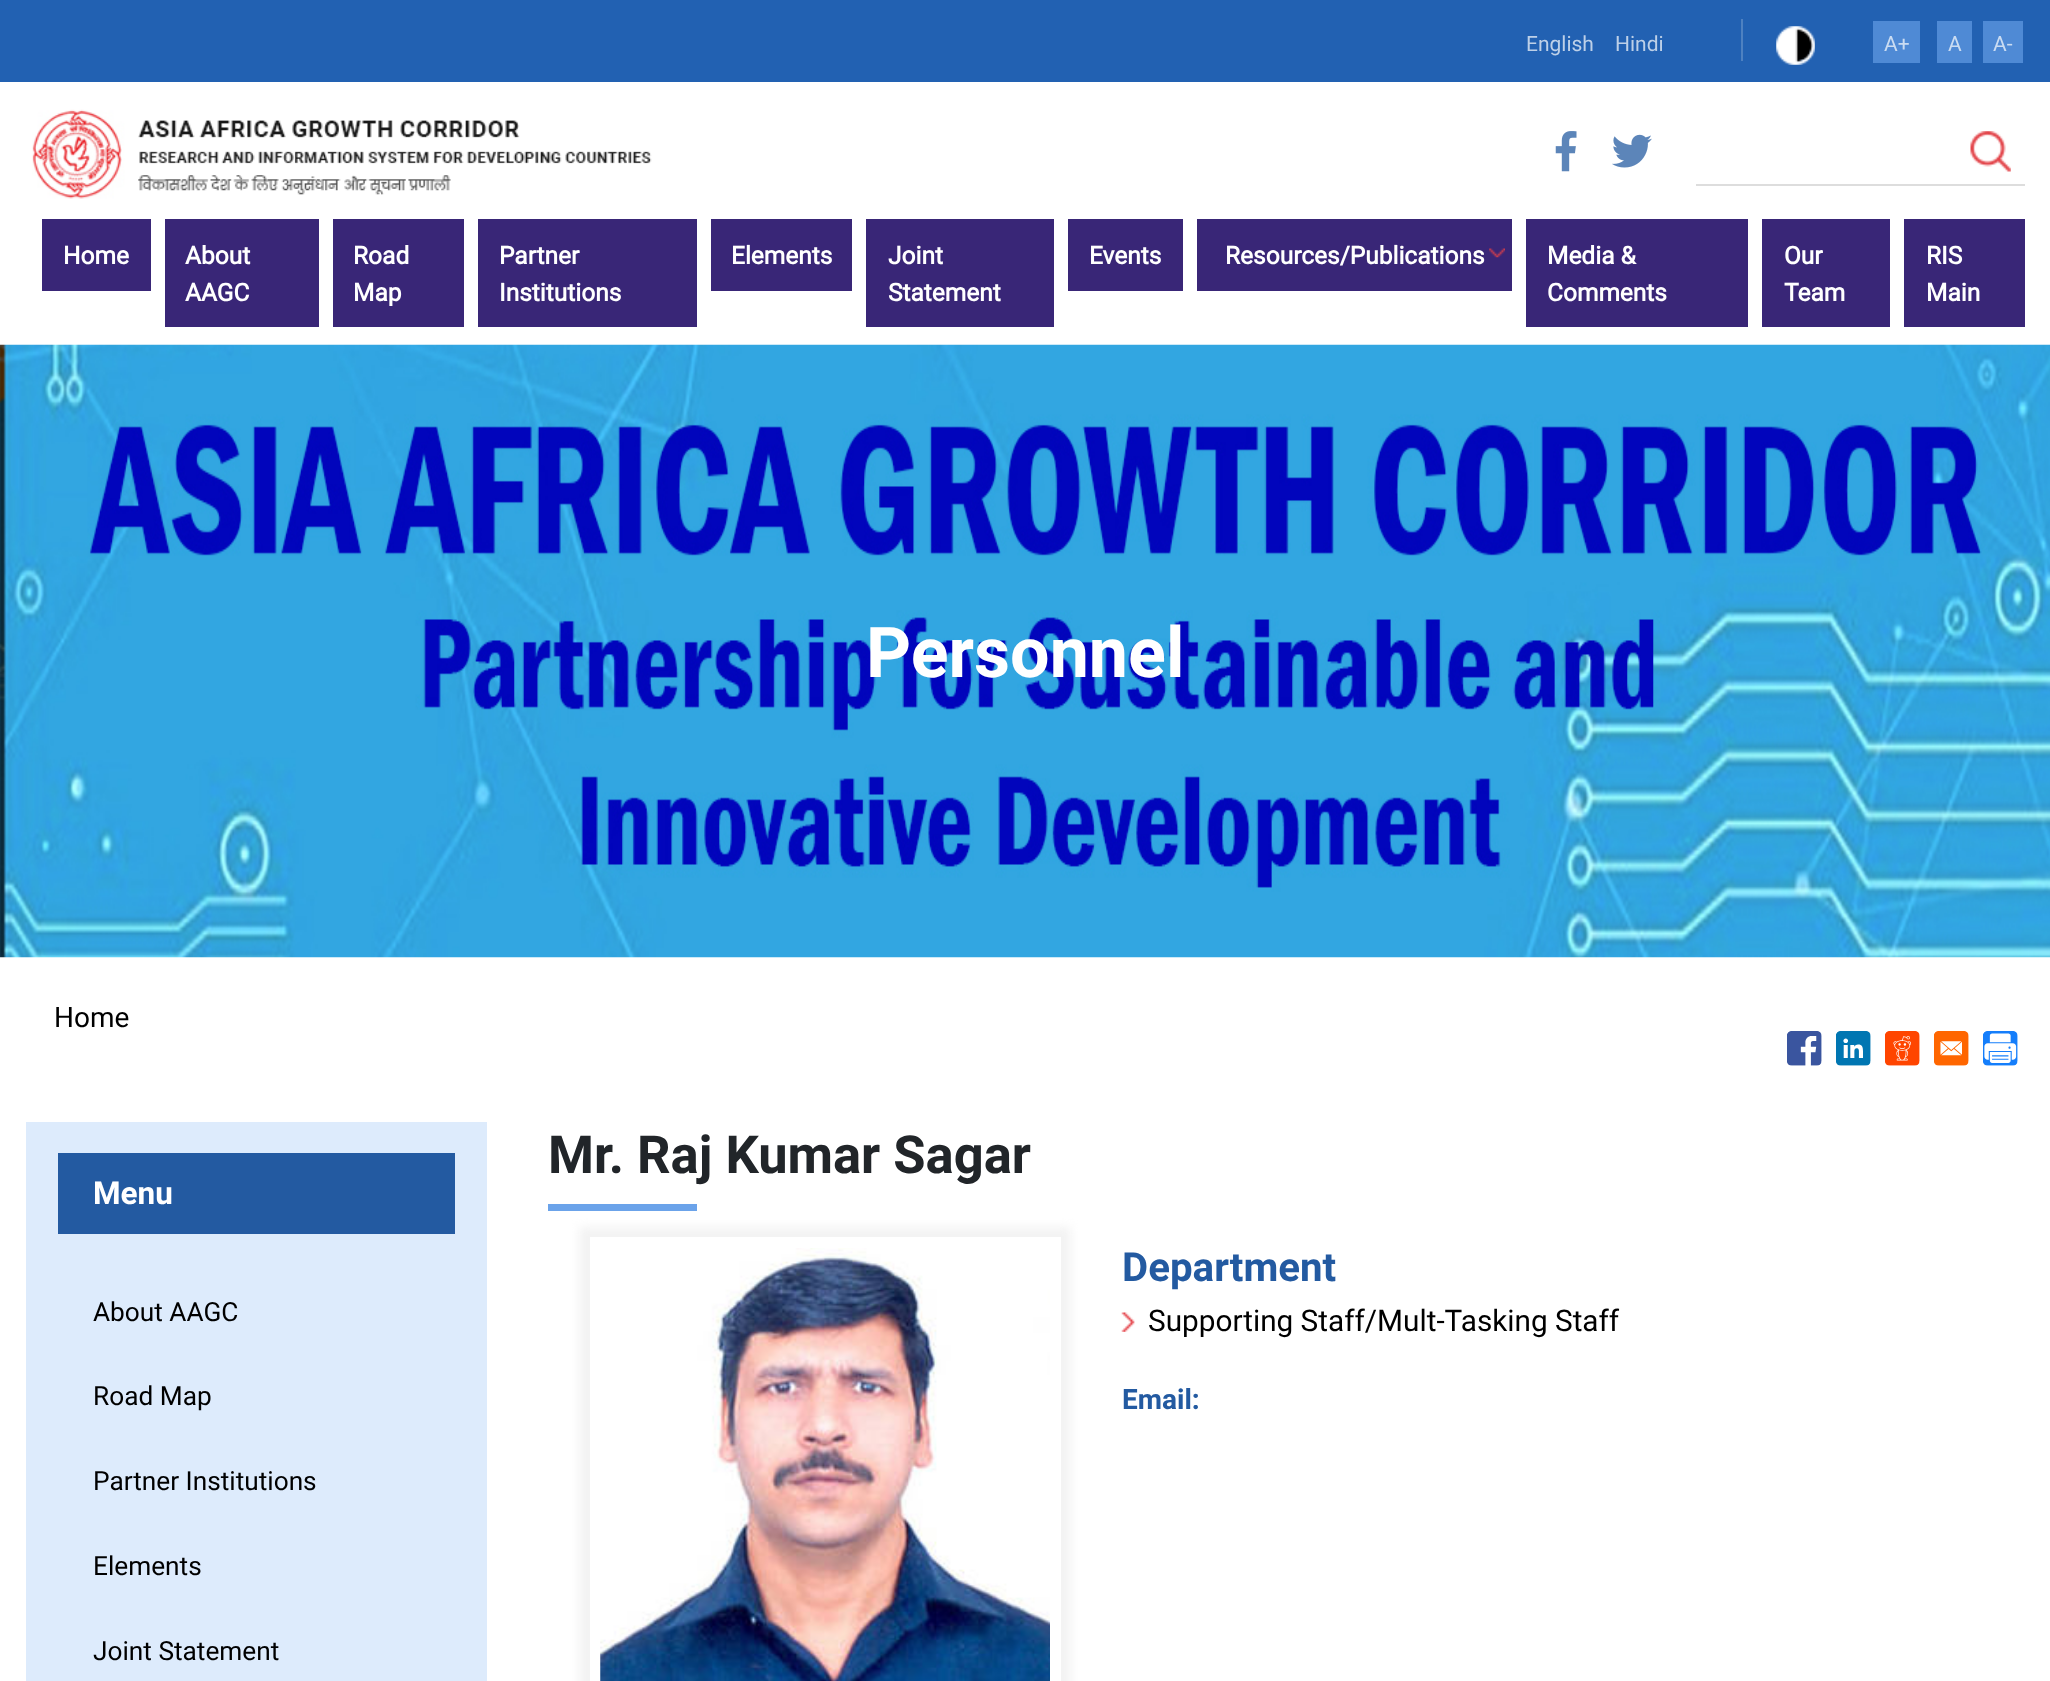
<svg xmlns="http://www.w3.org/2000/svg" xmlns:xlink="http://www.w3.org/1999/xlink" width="2050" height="1681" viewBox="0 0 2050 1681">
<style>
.cls-1{font:21px Roboto;fill:#bdd0e8}
.cls-2{font:21px Roboto;fill:#cadcf2}
.cls-3{font:bold 24.5px Roboto;fill:#ffffff}
.cls-4{font:bold 70px 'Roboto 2';fill:#ffffff}
.cls-5{font:28px Roboto;fill:#000000}
.cls-6{font:bold 31.5px 'Roboto 2';fill:#ffffff}
.cls-7{font:26.25px Roboto;fill:#000000}
.cls-8{font:bold 52.5px 'Roboto 2';fill:#212529}
.cls-9{font:bold 40.25px 'Roboto 2';fill:#235aa1}
.cls-10{font:29.75px Roboto;fill:#000000}
.cls-11{font:bold 28px 'Roboto 2';fill:#235aa1}
</style>
<rect width="100%" height="100%" fill="#ffffff"/>
<rect fill="#2261b2" x="0" y="0" width="2050" height="82"/>
<rect fill="#4e81c1" x="1741" y="19" width="2" height="42"/>
<image xlink:href="image0.png" x="1776" y="26" width="39" height="39"/>
<rect fill="#4f8ad5" x="1873" y="21" width="47" height="42"/>
<rect fill="#4f8ad5" x="1937" y="21" width="35" height="42"/>
<rect fill="#4f8ad5" x="1983" y="21" width="40" height="42"/>
<image xlink:href="image1.png" x="1555" y="131" width="22" height="41"/>
<image xlink:href="image2.png" x="1612" y="134" width="40" height="34"/>
<image xlink:href="image3.png" x="1970" y="131" width="41" height="41"/>
<rect fill="#dddddd" x="1696" y="184" width="329" height="2"/>
<image xlink:href="image4.png" x="32" y="109" width="620" height="90"/>
<rect fill="#392677" x="42" y="219" width="109" height="72"/>
<rect fill="#392677" x="165" y="219" width="154" height="108"/>
<rect fill="#392677" x="333" y="219" width="131" height="108"/>
<rect fill="#392677" x="478" y="219" width="219" height="108"/>
<rect fill="#392677" x="711" y="219" width="141" height="72"/>
<rect fill="#392677" x="866" y="219" width="188" height="108"/>
<rect fill="#392677" x="1068" y="219" width="115" height="72"/>
<rect fill="#392677" x="1197" y="219" width="315" height="72"/>
<image xlink:href="image5.png" x="1489" y="248" width="16" height="10"/>
<rect fill="#392677" x="1526" y="219" width="222" height="108"/>
<rect fill="#392677" x="1762" y="219" width="128" height="108"/>
<rect fill="#392677" x="1904" y="219" width="121" height="108"/>
<image xlink:href="image6.png" x="0" y="344" width="2050" height="614"/>
<image xlink:href="image7.png" x="1787" y="1031" width="35" height="35"/>
<image xlink:href="image8.png" x="1836" y="1031" width="35" height="35"/>
<image xlink:href="image9.png" x="1885" y="1031" width="35" height="35"/>
<image xlink:href="image10.png" x="1934" y="1031" width="35" height="35"/>
<image xlink:href="image11.png" x="1983" y="1031" width="35" height="35"/>
<rect fill="#ddebfc" x="26" y="1122" width="461" height="559"/>
<rect fill="#235aa1" x="58" y="1153" width="397" height="81"/>
<rect fill="#6ba3ea" x="548" y="1204" width="149" height="7"/>
<rect fill="#f3f3f3" filter="blur(5px)" x="579" y="1227" width="492" height="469"/>
<rect fill="none" stroke="#ffffff" stroke-width="11" x="595.5" y="1242.5" width="460" height="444"/>
<image xlink:href="image12.png" x="600" y="1248" width="450" height="433"/>
<image xlink:href="image13.png" x="1121" y="1312" width="14" height="20"/>
<text class="cls-1" x="1526" y="51">English</text>
<text class="cls-1" x="1615" y="51">Hindi</text>
<text class="cls-2" x="1884" y="51">A+</text>
<text class="cls-2" x="1948" y="51">A</text>
<text class="cls-2" x="1993" y="51">A-</text>
<text class="cls-3" x="63" y="264">Home</text>
<text class="cls-3"><tspan x="185" y="264">About</tspan><tspan x="185" y="301">AAGC</tspan></text>
<text class="cls-3"><tspan x="353" y="264">Road</tspan><tspan x="353" y="301">Map</tspan></text>
<text class="cls-3"><tspan x="499" y="264">Partner</tspan><tspan x="499" y="301">Institutions</tspan></text>
<text class="cls-3" x="731" y="264">Elements</text>
<text class="cls-3"><tspan x="888" y="264">Joint</tspan><tspan x="888" y="301">Statement</tspan></text>
<text class="cls-3" x="1089" y="264">Events</text>
<text class="cls-3" x="1225" y="264">Resources/Publications</text>
<text class="cls-3"><tspan x="1547" y="264">Media &amp;</tspan><tspan x="1547" y="301">Comments</tspan></text>
<text class="cls-3"><tspan x="1784" y="264">Our</tspan><tspan x="1784" y="301">Team</tspan></text>
<text class="cls-3"><tspan x="1926" y="264">RIS</tspan><tspan x="1926" y="301">Main</tspan></text>
<text class="cls-4" x="866" y="677">Personnel</text>
<text class="cls-5" x="54" y="1027">Home</text>
<text class="cls-6" x="93" y="1204">Menu</text>
<text class="cls-7" x="93" y="1321">About AAGC</text>
<text class="cls-7" x="93" y="1405">Road Map</text>
<text class="cls-7" x="93" y="1490">Partner Institutions</text>
<text class="cls-7" x="93" y="1575">Elements</text>
<text class="cls-7" x="93" y="1660">Joint Statement</text>
<text class="cls-8" x="548" y="1173">Mr. Raj Kumar Sagar</text>
<text class="cls-9" x="1122" y="1281">Department</text>
<text class="cls-10" x="1148" y="1331">Supporting Staff/Mult-Tasking Staff</text>
<text class="cls-11" x="1122" y="1409">Email:</text>
</svg>
